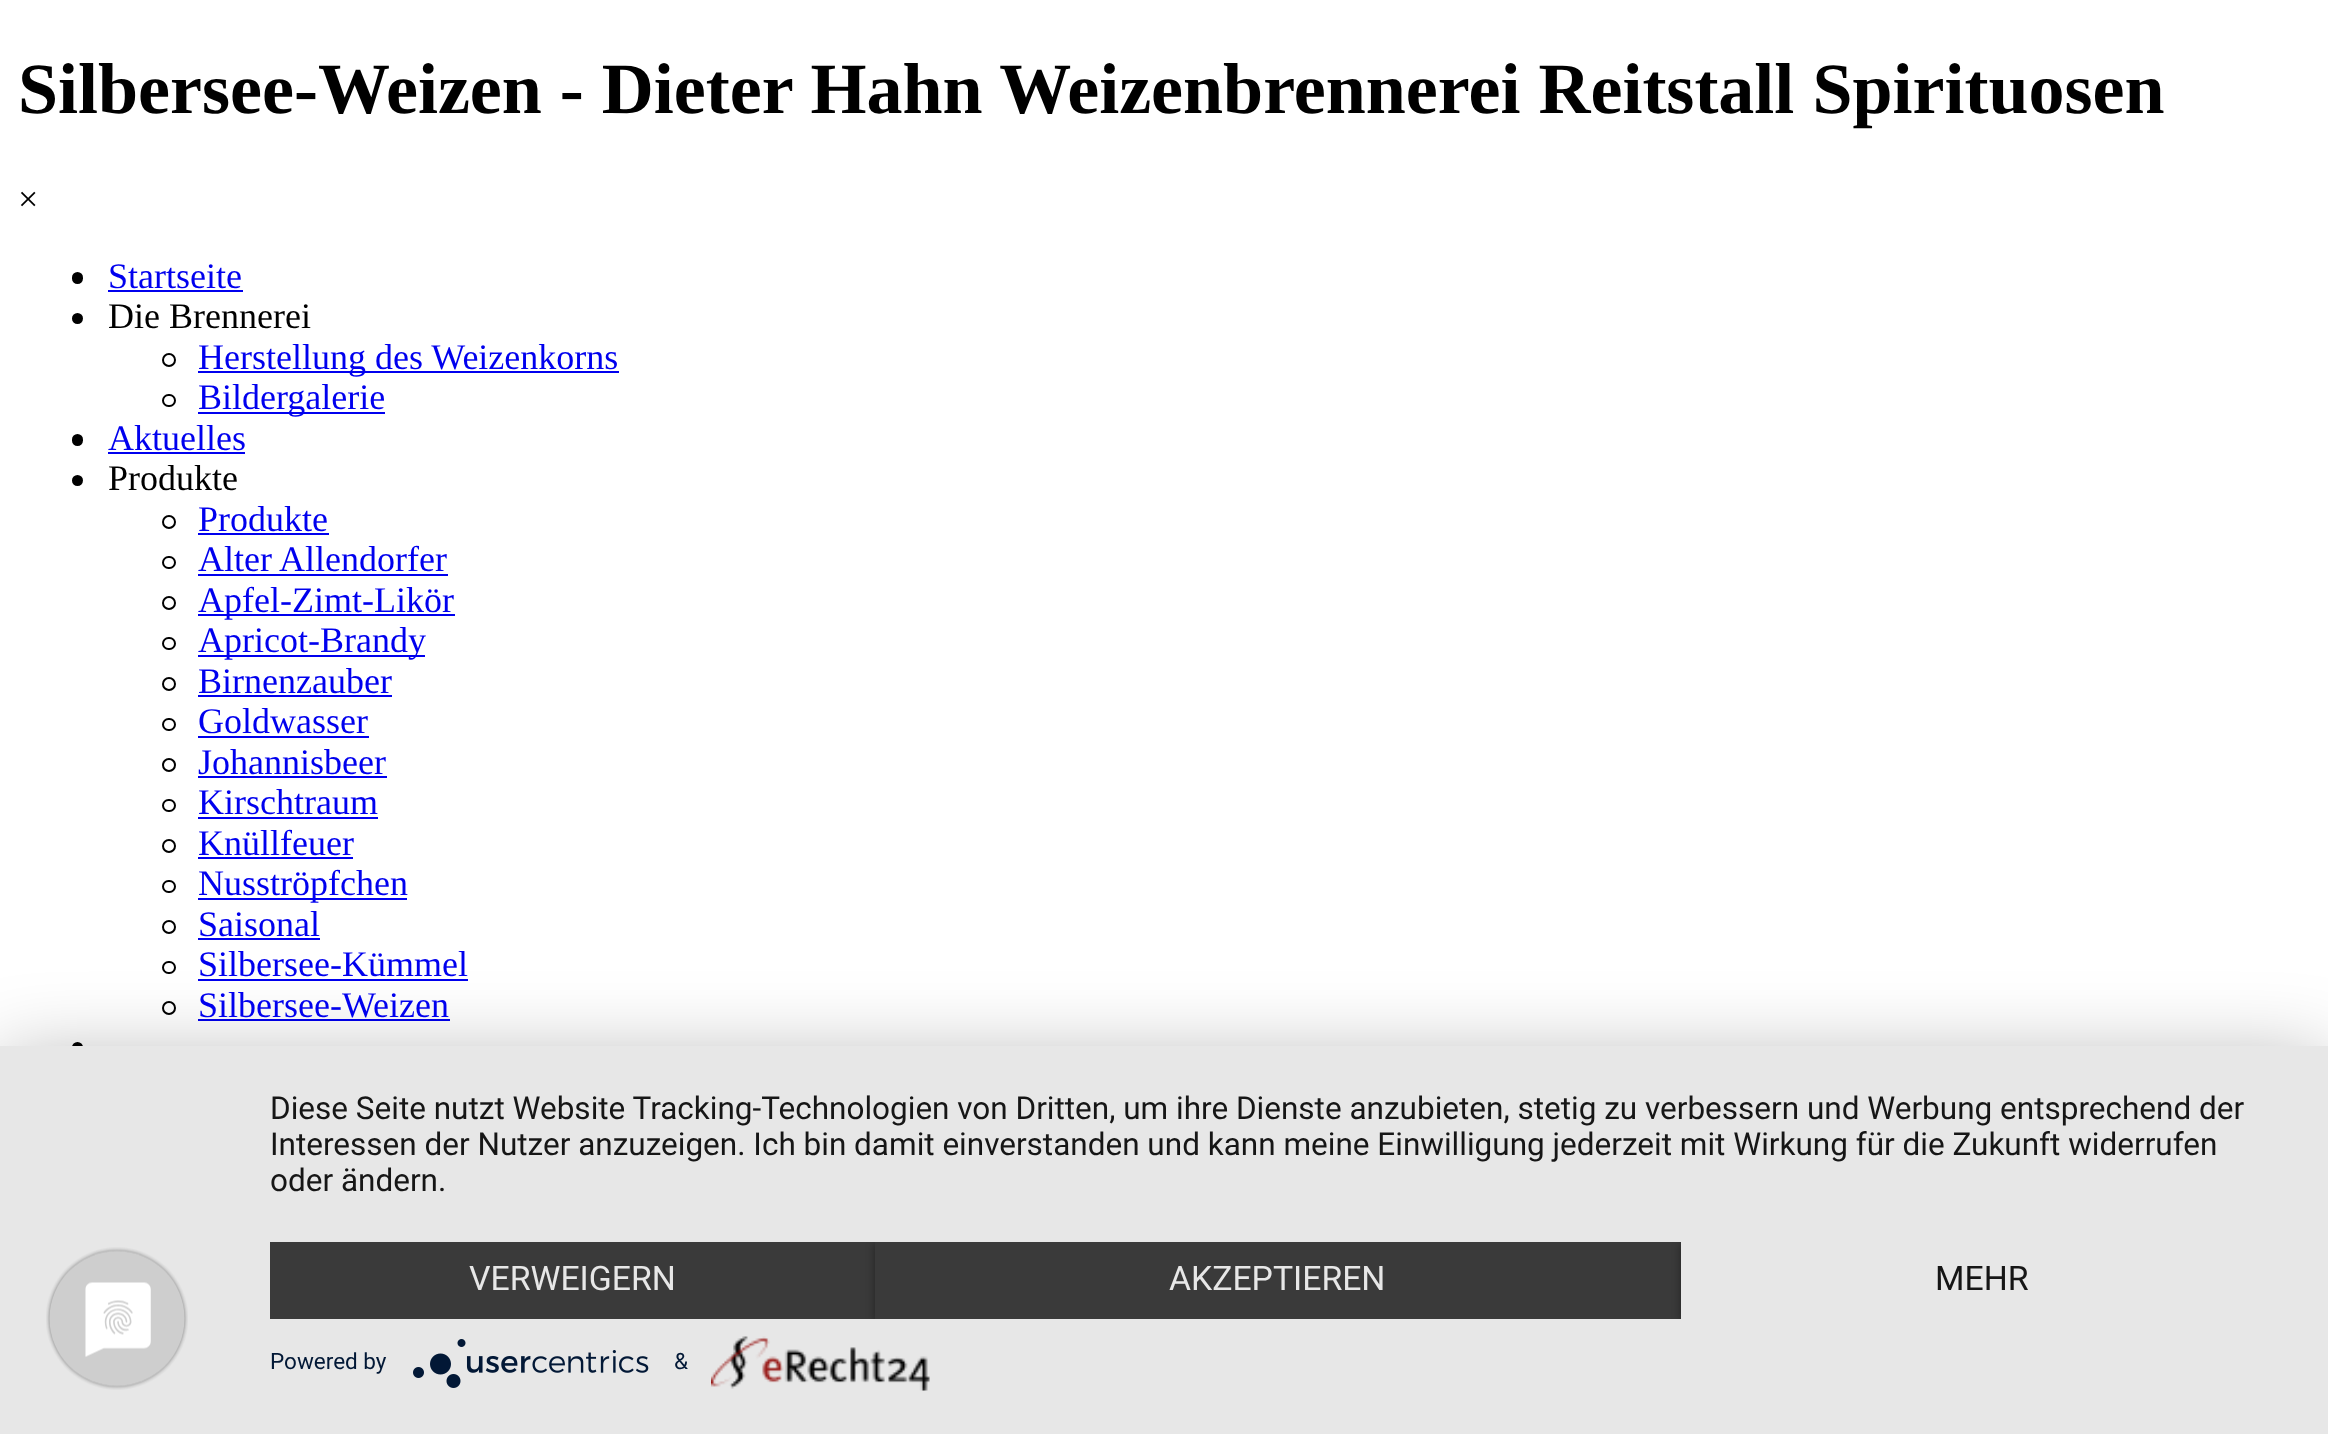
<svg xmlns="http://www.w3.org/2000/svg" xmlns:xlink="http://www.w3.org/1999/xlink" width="2328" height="1434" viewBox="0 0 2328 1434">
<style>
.cls-1{font:bold 72px Liberation Serif;fill:#000000}
.cls-2{font:36px Liberation Serif;fill:#000000}
.cls-3{font:36px Liberation Serif;fill:#0000ee}
.cls-4{font:31.5px Roboto;fill:#161616}
.cls-5{font:33.75px Roboto;fill:#e7e7e7}
.cls-6{font:33.75px Roboto;fill:#161616}
.cls-7{font:22.5px Roboto;fill:#021836}
</style>
<defs>
<clipPath id="clip1"><rect x="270" y="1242" width="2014" height="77"/></clipPath>
</defs>
<rect width="100%" height="100%" fill="#ffffff"/>
<rect fill="#000000" x="72" y="272" width="11" height="12" rx="5.5"/>
<rect fill="#0000ee" x="108" y="290" width="135" height="2"/>
<circle fill="#000000" cx="77.5" cy="318.5" r="5.5"/>
<circle fill="none" stroke="#000000" stroke-width="2" cx="169" cy="360" r="6"/>
<rect fill="#0000ee" x="198" y="371" width="421" height="2"/>
<rect fill="none" stroke="#000000" stroke-width="2" x="163" y="395" width="12" height="11" rx="5.5"/>
<rect fill="#0000ee" x="198" y="412" width="187" height="2"/>
<rect fill="#000000" x="72" y="434" width="11" height="12" rx="5.5"/>
<rect fill="#0000ee" x="108" y="452" width="137" height="2"/>
<circle fill="#000000" cx="77.5" cy="480.5" r="5.5"/>
<circle fill="none" stroke="#000000" stroke-width="2" cx="169" cy="522" r="6"/>
<rect fill="#0000ee" x="198" y="533" width="131" height="2"/>
<rect fill="none" stroke="#000000" stroke-width="2" x="163" y="557" width="12" height="11" rx="5.5"/>
<rect fill="#0000ee" x="198" y="574" width="250" height="2"/>
<circle fill="none" stroke="#000000" stroke-width="2" cx="169" cy="603" r="6"/>
<rect fill="#0000ee" x="198" y="614" width="257" height="2"/>
<rect fill="none" stroke="#000000" stroke-width="2" x="163" y="638" width="12" height="11" rx="5.5"/>
<rect fill="#0000ee" x="198" y="655" width="227" height="2"/>
<circle fill="none" stroke="#000000" stroke-width="2" cx="169" cy="684" r="6"/>
<rect fill="#0000ee" x="198" y="695" width="194" height="2"/>
<rect fill="none" stroke="#000000" stroke-width="2" x="163" y="719" width="12" height="11" rx="5.5"/>
<rect fill="#0000ee" x="198" y="736" width="171" height="2"/>
<circle fill="none" stroke="#000000" stroke-width="2" cx="169" cy="765" r="6"/>
<rect fill="#0000ee" x="198" y="776" width="189" height="2"/>
<rect fill="none" stroke="#000000" stroke-width="2" x="163" y="800" width="12" height="11" rx="5.5"/>
<rect fill="#0000ee" x="198" y="817" width="180" height="2"/>
<circle fill="none" stroke="#000000" stroke-width="2" cx="169" cy="846" r="6"/>
<rect fill="#0000ee" x="198" y="857" width="155" height="2"/>
<rect fill="none" stroke="#000000" stroke-width="2" x="163" y="881" width="12" height="11" rx="5.5"/>
<rect fill="#0000ee" x="198" y="898" width="209" height="2"/>
<circle fill="none" stroke="#000000" stroke-width="2" cx="169" cy="927" r="6"/>
<rect fill="#0000ee" x="198" y="938" width="122" height="2"/>
<rect fill="none" stroke="#000000" stroke-width="2" x="163" y="962" width="12" height="11" rx="5.5"/>
<rect fill="#0000ee" x="198" y="979" width="270" height="2"/>
<circle fill="none" stroke="#000000" stroke-width="2" cx="169" cy="1008" r="6"/>
<rect fill="#0000ee" x="198" y="1019" width="252" height="2"/>
<circle fill="#000000" cx="77.5" cy="1047.5" r="5.5"/>
<rect fill="#000000" fill-opacity="0.3" filter="blur(40.5px)" x="0" y="1060" width="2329" height="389"/>
<rect fill="#e7e7e7" x="0" y="1046" width="2328" height="388"/>
<image xlink:href="image0.png" x="46" y="1247" width="142" height="143"/>
<rect fill="#3a3a3a" x="270" y="1242" width="605" height="77"/>
<g clip-path="url(#clip1)">
<rect fill="#000000" fill-opacity="0.4" filter="blur(4.5px)" x="875" y="1244" width="806" height="77"/>
</g>
<rect fill="#3a3a3a" x="875" y="1242" width="806" height="77"/>
<g clip-path="url(#clip1)">
<rect fill="#000000" fill-opacity="0.4" filter="blur(4.5px)" x="1681" y="1244" width="603" height="77"/>
</g>
<rect fill="#e7e7e7" x="1681" y="1242" width="603" height="77"/>
<image xlink:href="image1.png" x="413" y="1339" width="236" height="49"/>
<image xlink:href="image2.png" x="711" y="1336" width="219" height="55"/>
<text class="cls-1" x="18" y="113">Silbersee-Weizen - Dieter Hahn Weizenbrennerei Reitstall Spirituosen</text>
<text class="cls-2" x="18" y="211">×</text>
<text class="cls-3" x="108" y="288">Startseite</text>
<text class="cls-2" x="108" y="328">Die Brennerei</text>
<text class="cls-3"><tspan x="198" y="369">Herstellung des Weizenkorns</tspan><tspan x="198" y="409">Bildergalerie</tspan></text>
<text class="cls-3" x="108" y="450">Aktuelles</text>
<text class="cls-2" x="108" y="490">Produkte</text>
<text class="cls-3"><tspan x="198" y="531">Produkte</tspan><tspan x="198" y="571">Alter Allendorfer</tspan><tspan x="198" y="612">Apfel-Zimt-Likör</tspan><tspan x="198" y="652">Apricot-Brandy</tspan><tspan x="198" y="693">Birnenzauber</tspan><tspan x="198" y="733">Goldwasser</tspan><tspan x="198" y="774">Johannisbeer</tspan><tspan x="198" y="814">Kirschtraum</tspan><tspan x="198" y="855">Knüllfeuer</tspan><tspan x="198" y="895">Nusströpfchen</tspan><tspan x="198" y="936">Saisonal</tspan><tspan x="198" y="976">Silbersee-Kümmel</tspan><tspan x="198" y="1017">Silbersee-Weizen</tspan></text>
<text class="cls-4"><tspan x="270" y="1119">Diese Seite nutzt Website Tracking-Technologien von Dritten, um ihre Dienste anzubieten, stetig zu verbessern und Werbung entsprechend der</tspan><tspan x="270" y="1155">Interessen der Nutzer anzuzeigen. Ich bin damit einverstanden und kann meine Einwilligung jederzeit mit Wirkung für die Zukunft widerrufen</tspan><tspan x="270" y="1191">oder ändern.</tspan></text>
<text class="cls-5" x="469" y="1290">VERWEIGERN</text>
<text class="cls-5" x="1169" y="1290">AKZEPTIEREN</text>
<text class="cls-6" x="1935" y="1290">MEHR</text>
<text class="cls-7" x="270" y="1369">Powered by</text>
<text class="cls-7" x="674" y="1369">&amp;</text>
</svg>
